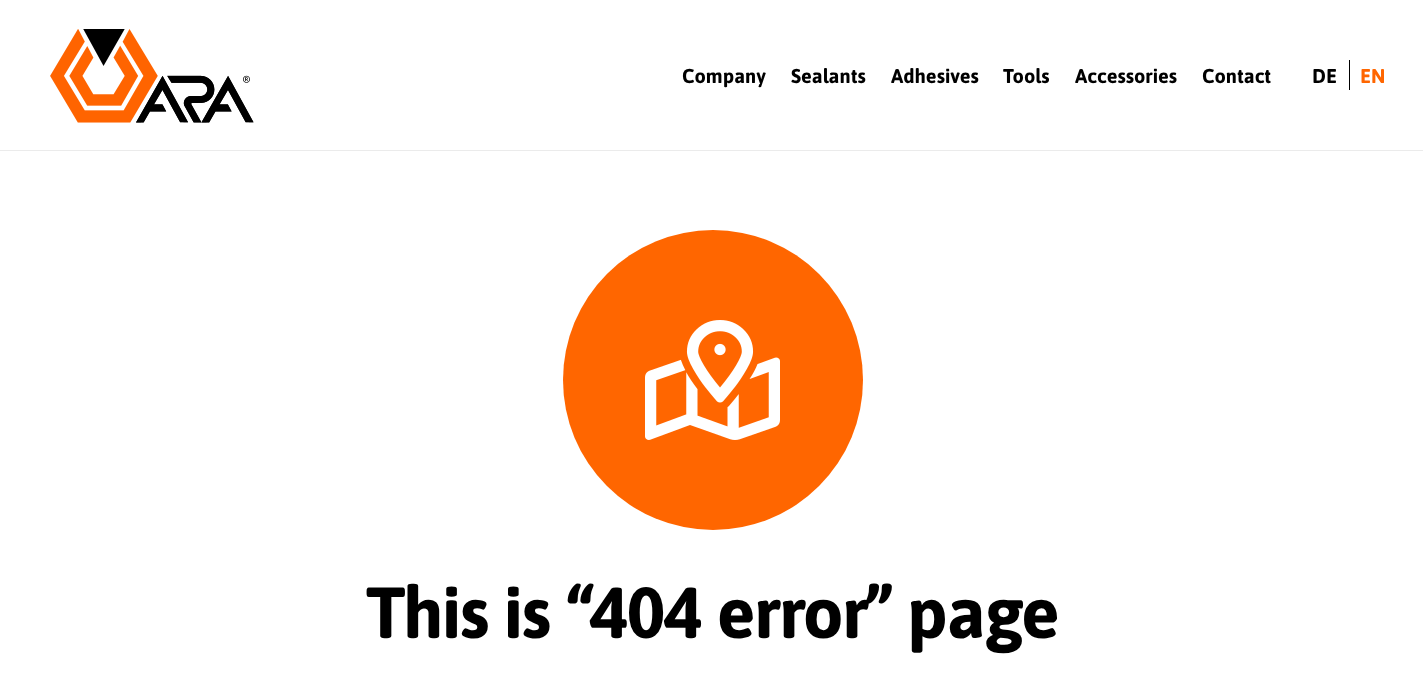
<svg xmlns="http://www.w3.org/2000/svg" xmlns:xlink="http://www.w3.org/1999/xlink" width="1423" height="680" viewBox="0 0 1423 680">
<style>
.cls-1{font:bold 20px Asap;fill:#000000}
.cls-2{font:bold 20px Asap;fill:#ff6600}
.cls-3{font:bold 72px Asap;letter-spacing:-1.4px;fill:#000000}
</style>
<rect width="100%" height="100%" fill="#ffffff"/>
<path fill="#ebebeb" d="M0 150V151H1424V1V150Z"/>
<image xlink:href="image0.png" x="50" y="29" width="204" height="94"/>
<rect fill="#000000" x="1349" y="60" width="1" height="30"/>
<circle fill="#ff6600" cx="713" cy="380" r="150"/>
<image xlink:href="image1.png" x="645" y="320" width="135" height="120"/>
<text class="cls-1" x="682" y="83">Company</text>
<text class="cls-1" x="791" y="83">Sealants</text>
<text class="cls-1" x="891" y="83">Adhesives</text>
<text class="cls-1" x="1003" y="83">Tools</text>
<text class="cls-1" x="1075" y="83">Accessories</text>
<text class="cls-1" x="1202" y="83">Contact</text>
<text class="cls-1" x="1312" y="83">DE</text>
<text class="cls-2" x="1360" y="83">EN</text>
<text class="cls-3" x="366" y="638">This is “404 error” page</text>
</svg>
